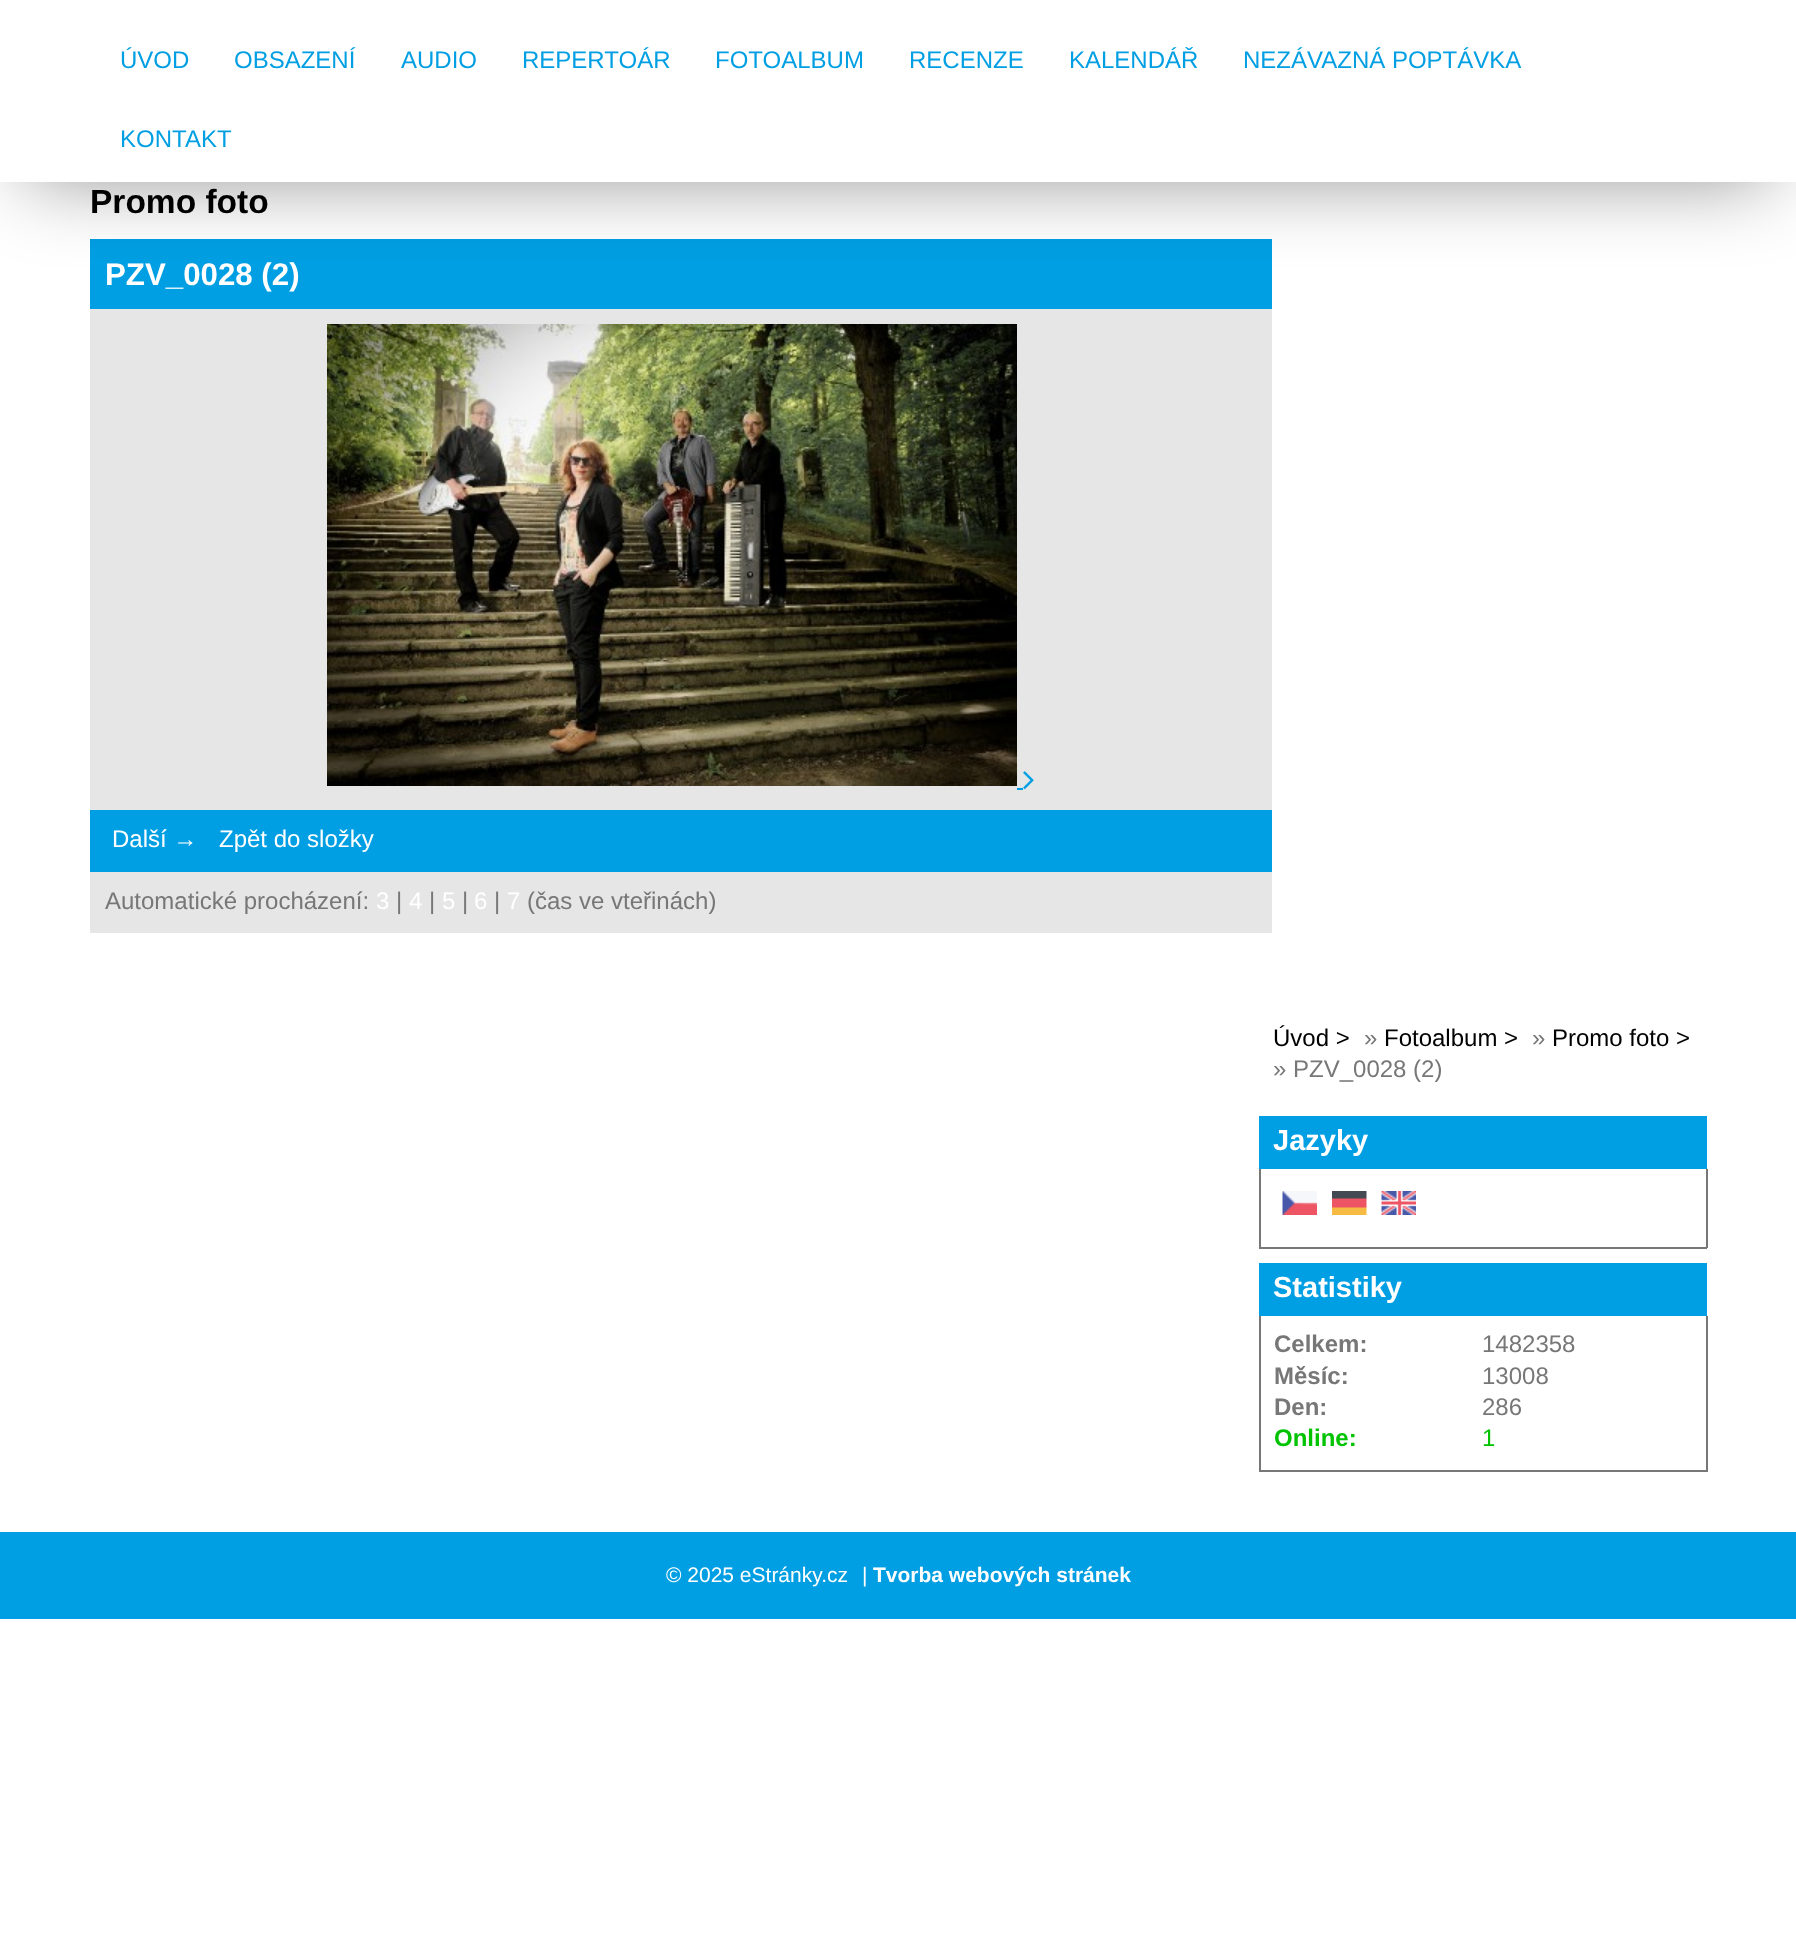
<svg xmlns="http://www.w3.org/2000/svg" xmlns:xlink="http://www.w3.org/1999/xlink" width="1796" height="1951" viewBox="0 0 1796 1951">
<style>
.cls-1{font:24px Liberation Sans;fill:#009fe3}
.cls-2{font:bold 33.5px Liberation Sans;fill:#000000}
.cls-3{font:bold 31.25px Liberation Sans;fill:#ffffff}
.cls-4{font:24px Liberation Sans;fill:#ffffff}
.cls-5{font:24px Liberation Sans;fill:#777777}
.cls-6{font:24px Liberation Sans;fill:#000000}
.cls-7{font:bold 29px Liberation Sans;fill:#ffffff}
.cls-8{font:bold 24px Liberation Sans;fill:#777777}
.cls-9{font:bold 24px Liberation Sans;fill:#00c300}
.cls-10{font:24px Liberation Sans;fill:#00c300}
.cls-11{font:21px Liberation Sans;fill:#ffffff}
.cls-12{font:bold 21px Liberation Sans;fill:#ffffff}
</style>
<rect width="100%" height="100%" fill="#ffffff"/>
<rect fill="#009fe3" x="90" y="239" width="1182" height="70"/>
<rect fill="#000000" fill-opacity="0.45" filter="blur(40.5px)" x="27" y="50" width="1743" height="127"/>
<rect fill="#ffffff" x="0" y="0" width="1796" height="182"/>
<rect fill="#e6e6e6" x="90" y="309" width="1182" height="501"/>
<image xlink:href="image0.png" x="327" y="324" width="690" height="462"/>
<rect fill="#009fe3" x="1017" y="788" width="6" height="2"/>
<image xlink:href="image1.png" x="1023" y="771" width="11" height="19"/>
<rect fill="#009fe3" x="90" y="810" width="1182" height="62"/>
<rect fill="#e6e6e6" x="90" y="872" width="1182" height="61"/>
<rect fill="#009fe3" x="1259" y="1116" width="448" height="53"/>
<rect fill="#777777" x="1706" y="1169" width="2" height="79"/>
<rect fill="#777777" x="1259" y="1247" width="448" height="2"/>
<rect fill="#777777" x="1259" y="1169" width="2" height="79"/>
<image xlink:href="image2.png" x="1282" y="1191" width="35" height="24"/>
<image xlink:href="image3.png" x="1332" y="1191" width="35" height="24"/>
<image xlink:href="image4.png" x="1381" y="1191" width="35" height="24"/>
<rect fill="#009fe3" x="1259" y="1263" width="448" height="53"/>
<rect fill="#777777" x="1706" y="1316" width="2" height="156"/>
<rect fill="#777777" x="1259" y="1470" width="448" height="2"/>
<rect fill="#777777" x="1259" y="1316" width="2" height="156"/>
<rect fill="#009fe3" x="0" y="1532" width="1796" height="87"/>
<text class="cls-1" x="120" y="68">ÚVOD</text>
<text class="cls-1" x="234" y="68">OBSAZENÍ</text>
<text class="cls-1" x="401" y="68">AUDIO</text>
<text class="cls-1" x="522" y="68">REPERTOÁR</text>
<text class="cls-1" x="715" y="68">FOTOALBUM</text>
<text class="cls-1" x="909" y="68">RECENZE</text>
<text class="cls-1" x="1069" y="68">KALENDÁŘ</text>
<text class="cls-1" x="1243" y="68">NEZÁVAZNÁ POPTÁVKA</text>
<text class="cls-1" x="120" y="147">KONTAKT</text>
<text class="cls-2" x="90" y="213">Promo foto</text>
<text class="cls-3" x="105" y="285">PZV_0028 (2)</text>
<text class="cls-4" x="112" y="847">Další →</text>
<text class="cls-4" x="219" y="847">Zpět do složky</text>
<text class="cls-5" x="105" y="909">Automatické procházení:</text>
<text class="cls-4" x="376" y="909">3</text>
<text class="cls-5" x="396" y="909">|</text>
<text class="cls-4" x="409" y="909">4</text>
<text class="cls-5" x="429" y="909">|</text>
<text class="cls-4" x="442" y="909">5</text>
<text class="cls-5" x="462" y="909">|</text>
<text class="cls-4" x="474" y="909">6</text>
<text class="cls-5" x="494" y="909">|</text>
<text class="cls-4" x="507" y="909">7</text>
<text class="cls-5" x="527" y="909">(čas ve vteřinách)</text>
<text class="cls-6" x="1273" y="1046">Úvod &gt;</text>
<text class="cls-5" x="1364" y="1046">»</text>
<text class="cls-6" x="1384" y="1046">Fotoalbum &gt;</text>
<text class="cls-5" x="1532" y="1046">»</text>
<text class="cls-6" x="1552" y="1046">Promo foto &gt;</text>
<text class="cls-5" x="1273" y="1077">» PZV_0028 (2)</text>
<text class="cls-7" x="1273" y="1150">Jazyky</text>
<text class="cls-7" x="1273" y="1297">Statistiky</text>
<text class="cls-8" x="1274" y="1352">Celkem:</text>
<text class="cls-5" x="1482" y="1352">1482358</text>
<text class="cls-8" x="1274" y="1384">Měsíc:</text>
<text class="cls-5" x="1482" y="1384">13008</text>
<text class="cls-8" x="1274" y="1415">Den:</text>
<text class="cls-5" x="1482" y="1415">286</text>
<text class="cls-9" x="1274" y="1446">Online:</text>
<text class="cls-10" x="1482" y="1446">1</text>
<text class="cls-11" x="666" y="1582">© 2025 eStránky.cz</text>
<text class="cls-11" x="862" y="1582">|</text>
<text class="cls-12" x="873" y="1582">Tvorba webových stránek</text>
</svg>
